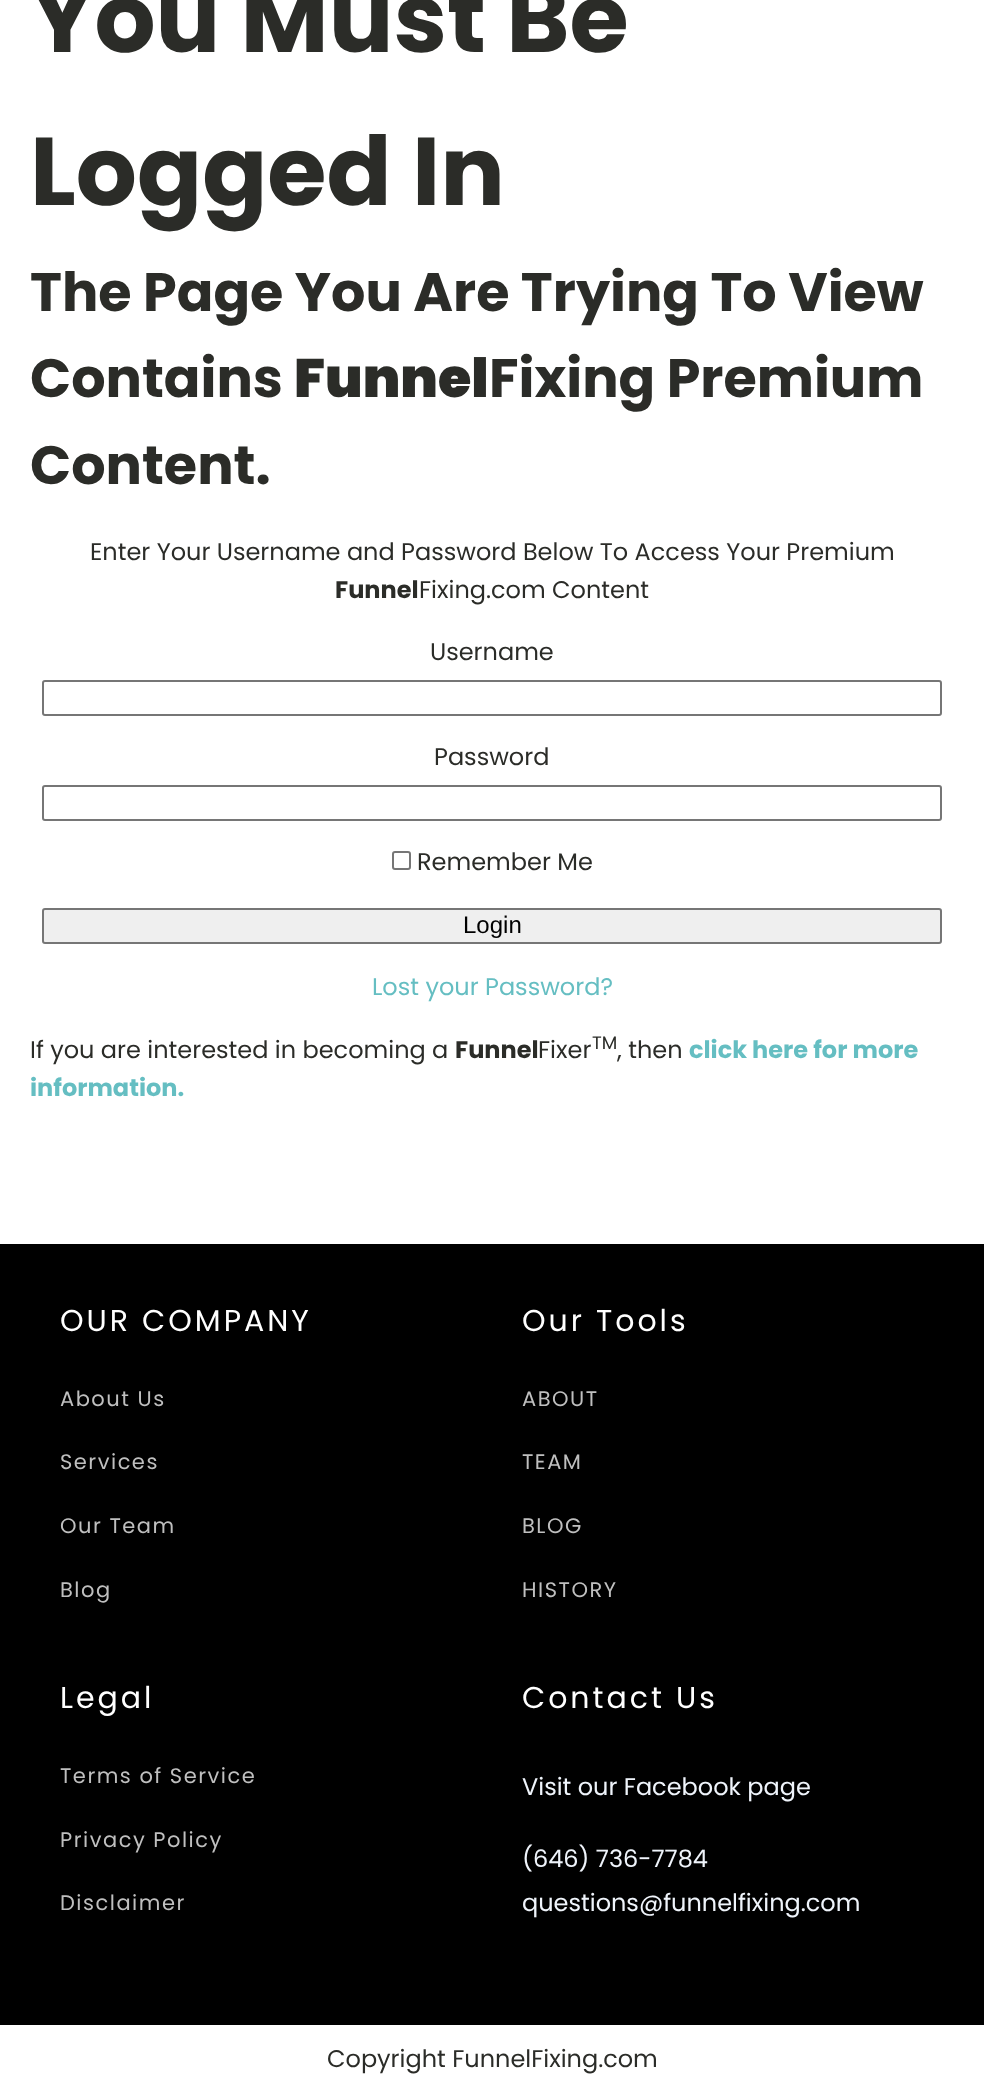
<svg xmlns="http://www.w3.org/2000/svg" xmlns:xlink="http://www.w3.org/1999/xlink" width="984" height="2094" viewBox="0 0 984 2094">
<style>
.cls-1{font:bold 96px Poppins;fill:#2b2c28}
.cls-2{font:bold 54px Poppins;fill:#2b2c28}
.cls-3{font:900 54px Poppins;fill:#2b2c28}
.cls-4{font:24px Poppins;fill:#2b2c28}
.cls-5{font:bold 24px Poppins;fill:#2b2c28}
.cls-6{font:24px Liberation Sans;fill:#000000}
.cls-7{font:24px Poppins;fill:#65bec2}
.cls-8{font:18px Poppins;fill:#2b2c28}
.cls-9{font:bold 24px Poppins;fill:#65bec2}
.cls-10{font:30px Poppins;letter-spacing:3px;fill:#ffffff}
.cls-11{font:21px Poppins;letter-spacing:1.5px;fill:#bfbfbf}
.cls-12{font:24px Poppins;fill:#eff4fb}
</style>
<rect width="100%" height="100%" fill="#ffffff"/>
<rect fill="none" stroke="#767676" stroke-width="2" x="43" y="681" width="898" height="34" rx="2"/>
<rect fill="none" stroke="#767676" stroke-width="2" x="43" y="786" width="898" height="34" rx="2"/>
<rect fill="none" stroke="#767676" stroke-width="2" x="393" y="852" width="17" height="17" rx="2"/>
<rect fill="#efefef" stroke="#767676" stroke-width="2" x="43" y="909" width="898" height="34" rx="2"/>
<rect fill="#000000" x="0" y="1244" width="984" height="781"/>
<text class="cls-1"><tspan x="30" y="52">You Must Be</tspan><tspan x="30" y="205">Logged In</tspan></text>
<text class="cls-2"><tspan x="30" y="311">The Page You Are Trying To View</tspan><tspan x="30" y="397">Contains</tspan></text>
<text class="cls-3" x="294" y="397">Funnel</text>
<text class="cls-2" x="489" y="397">Fixing Premium</text>
<text class="cls-2" x="30" y="484">Content.</text>
<text class="cls-4" x="90" y="560">Enter Your Username and Password Below To Access Your Premium</text>
<text class="cls-5" x="335" y="598">Funnel</text>
<text class="cls-4" x="419" y="598">Fixing.com Content</text>
<text class="cls-4" x="430" y="660">Username</text>
<text class="cls-4" x="434" y="765">Password</text>
<text class="cls-4" x="417" y="870">Remember Me</text>
<text class="cls-6" x="463" y="933">Login</text>
<text class="cls-7" x="372" y="995">Lost your Password?</text>
<text class="cls-4" x="30" y="1058">If you are interested in becoming a</text>
<text class="cls-5" x="455" y="1058">Funnel</text>
<text class="cls-4" x="538" y="1058">Fixer</text>
<text class="cls-8" x="592" y="1049">TM</text>
<text class="cls-4" x="617" y="1058">, then</text>
<text class="cls-9" x="689" y="1058">click here for more</text>
<text class="cls-9" x="30" y="1096">information.</text>
<text class="cls-10" x="60" y="1331">OUR COMPANY</text>
<text class="cls-11" x="60" y="1406">About Us</text>
<text class="cls-11" x="60" y="1469">Services</text>
<text class="cls-11" x="60" y="1533">Our Team</text>
<text class="cls-11" x="60" y="1597">Blog</text>
<text class="cls-10" x="522" y="1331">Our Tools</text>
<text class="cls-11" x="522" y="1406">ABOUT</text>
<text class="cls-11" x="522" y="1469">TEAM</text>
<text class="cls-11" x="522" y="1533">BLOG</text>
<text class="cls-11" x="522" y="1597">HISTORY</text>
<text class="cls-10" x="60" y="1708">Legal</text>
<text class="cls-11" x="60" y="1783">Terms of Service</text>
<text class="cls-11" x="60" y="1847">Privacy Policy</text>
<text class="cls-11" x="60" y="1910">Disclaimer</text>
<text class="cls-10" x="522" y="1708">Contact Us</text>
<text class="cls-12" x="522" y="1795">Visit our Facebook page</text>
<text class="cls-12"><tspan x="522" y="1867">(646) 736-7784</tspan><tspan x="522" y="1911">questions@funnelfixing.com</tspan></text>
<text class="cls-4" x="327" y="2067">Copyright FunnelFixing.com</text>
</svg>
